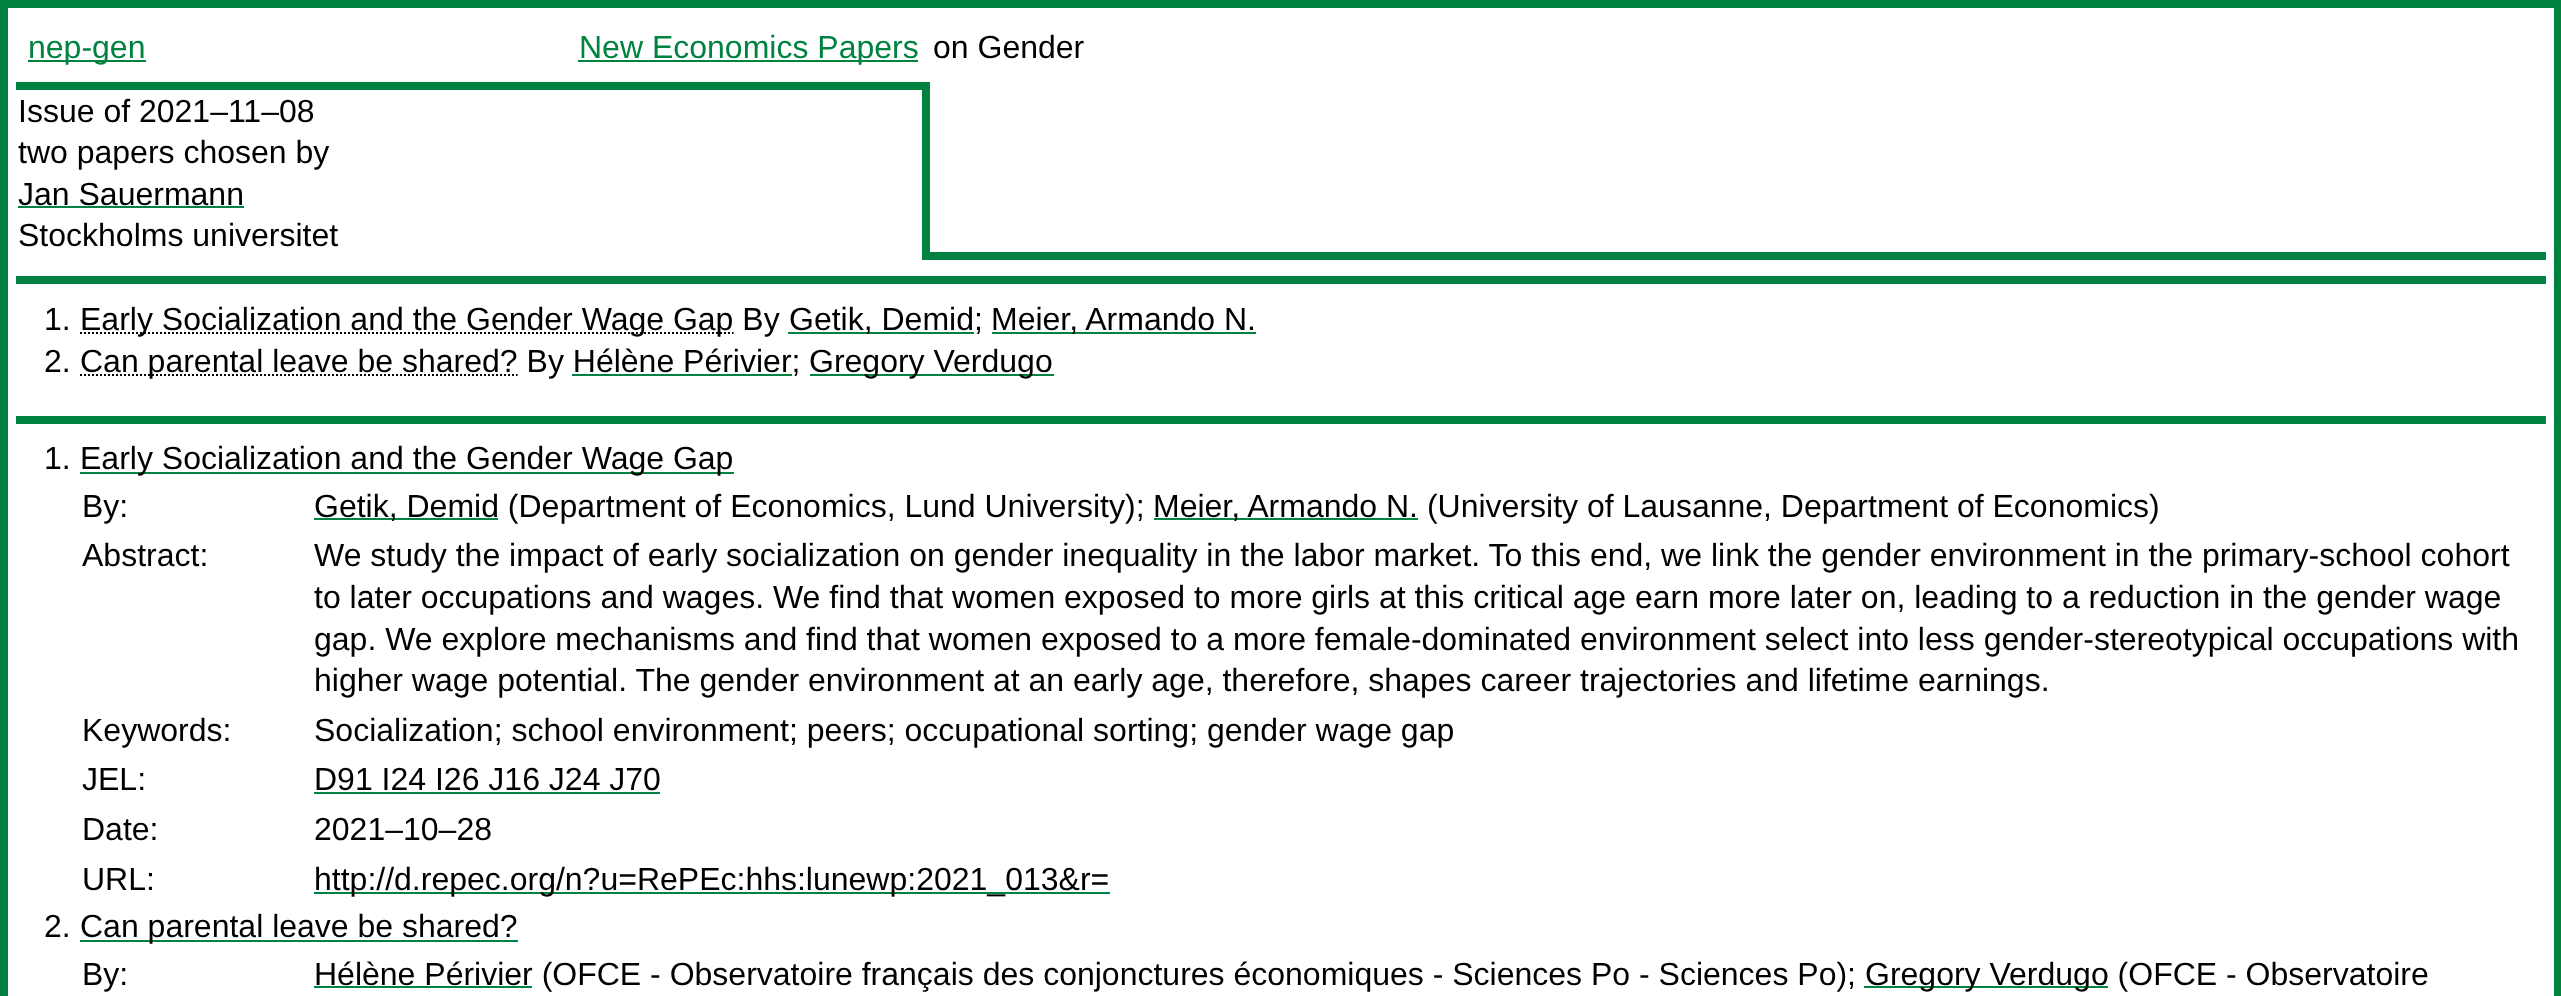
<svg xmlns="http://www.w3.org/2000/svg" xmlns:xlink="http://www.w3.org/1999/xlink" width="2561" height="996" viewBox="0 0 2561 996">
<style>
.cls-1{font:32px Liberation Sans;fill:#008241}
.cls-2{font:32px Liberation Sans;fill:#000000}
</style>
<rect width="100%" height="100%" fill="#ffffff"/>
<rect fill="none" stroke="#008241" stroke-width="8" x="4" y="4" width="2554" height="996"/>
<rect fill="#008241" x="28" y="60" width="118" height="2"/>
<rect fill="#008241" x="578" y="60" width="340" height="2"/>
<rect fill="#008241" x="16" y="82" width="910" height="8"/>
<rect fill="#008241" x="922" y="82" width="4" height="178"/>
<rect fill="#008241" x="18" y="206" width="226" height="2"/>
<rect fill="#008241" x="926" y="252" width="1620" height="8"/>
<rect fill="#008241" x="926" y="82" width="4" height="178"/>
<rect fill="#008241" x="16" y="276" width="2530" height="8"/>
<path fill="none" stroke="#000000" stroke-width="2" stroke-dasharray="2 2" d="M80 333H733.5"/>
<rect fill="#008241" x="788" y="332" width="186" height="2"/>
<rect fill="#008241" x="992" y="332" width="264" height="2"/>
<path fill="none" stroke="#000000" stroke-width="2" stroke-dasharray="2 2" d="M80 375H517.5"/>
<rect fill="#008241" x="810" y="374" width="244" height="2"/>
<rect fill="#008241" x="16" y="416" width="2530" height="8"/>
<rect fill="#008241" x="80" y="472" width="654" height="2"/>
<rect fill="#008241" x="314" y="518" width="184" height="2"/>
<rect fill="#008241" x="1154" y="518" width="264" height="2"/>
<rect fill="#008241" x="314" y="792" width="346" height="2"/>
<rect fill="#008241" x="314" y="892" width="796" height="2"/>
<rect fill="#008241" x="80" y="940" width="438" height="2"/>
<rect fill="#008241" x="314" y="986" width="218" height="2"/>
<rect fill="#008241" x="1864" y="986" width="244" height="2"/>
<text class="cls-1" x="28" y="58">nep-gen</text>
<text class="cls-1" x="579" y="58">New Economics Papers</text>
<text class="cls-2" x="933" y="58">on Gender</text>
<text class="cls-2"><tspan x="18" y="122">Issue of 2021‒11‒08</tspan><tspan x="18" y="163">two papers chosen by</tspan><tspan x="18" y="205">Jan Sauermann</tspan><tspan x="18" y="246">Stockholms universitet</tspan></text>
<text class="cls-2" x="44" y="330">1.</text>
<text class="cls-2" x="80" y="330">Early Socialization and the Gender Wage Gap By</text>
<text class="cls-2" x="789" y="330">Getik, Demid;</text>
<text class="cls-2" x="991" y="330">Meier, Armando N.</text>
<text class="cls-2" x="44" y="372">2.</text>
<text class="cls-2" x="80" y="372">Can parental leave be shared? By Hélène Périvier;</text>
<text class="cls-2" x="809" y="372">Gregory Verdugo</text>
<rect fill="#008241" x="572" y="374" width="220" height="2"/>
<text class="cls-2" x="44" y="469">1.</text>
<text class="cls-2" x="80" y="469">Early Socialization and the Gender Wage Gap</text>
<text class="cls-2" x="82" y="517">By:</text>
<text class="cls-2" x="314" y="517">Getik, Demid (Department of Economics, Lund University);</text>
<text class="cls-2" x="1153" y="517">Meier, Armando N. (University of Lausanne, Department of Economics)</text>
<text class="cls-2" x="82" y="566">Abstract:</text>
<text class="cls-2"><tspan x="314" y="566">We study the impact of early socialization on gender inequality in the labor market. To this end, we link the gender environment in the primary-school cohort</tspan><tspan x="314" y="608">to later occupations and wages. We find that women exposed to more girls at this critical age earn more later on, leading to a reduction in the gender wage</tspan><tspan x="314" y="650">gap. We explore mechanisms and find that women exposed to a more female-dominated environment select into less gender-stereotypical occupations with</tspan><tspan x="314" y="691">higher wage potential. The gender environment at an early age, therefore, shapes career trajectories and lifetime earnings.</tspan></text>
<text class="cls-2" x="82" y="741">Keywords:</text>
<text class="cls-2" x="314" y="741">Socialization; school environment; peers; occupational sorting; gender wage gap</text>
<text class="cls-2" x="82" y="790">JEL:</text>
<text class="cls-2" x="314" y="790">D91 I24 I26 J16 J24 J70</text>
<text class="cls-2" x="82" y="840">Date:</text>
<text class="cls-2" x="314" y="840">2021–10–28</text>
<text class="cls-2" x="82" y="890">URL:</text>
<text class="cls-2" x="314" y="890">http://d.repec.org/n?u=RePEc:hhs:lunewp:2021_013&amp;r=</text>
<text class="cls-2" x="44" y="937">2.</text>
<text class="cls-2" x="80" y="937">Can parental leave be shared?</text>
<text class="cls-2" x="82" y="985">By:</text>
<text class="cls-2" x="314" y="985">Hélène Périvier (OFCE - Observatoire français des conjonctures économiques - Sciences Po - Sciences Po);</text>
<text class="cls-2" x="1865" y="985">Gregory Verdugo (OFCE - Observatoire</text>
</svg>
